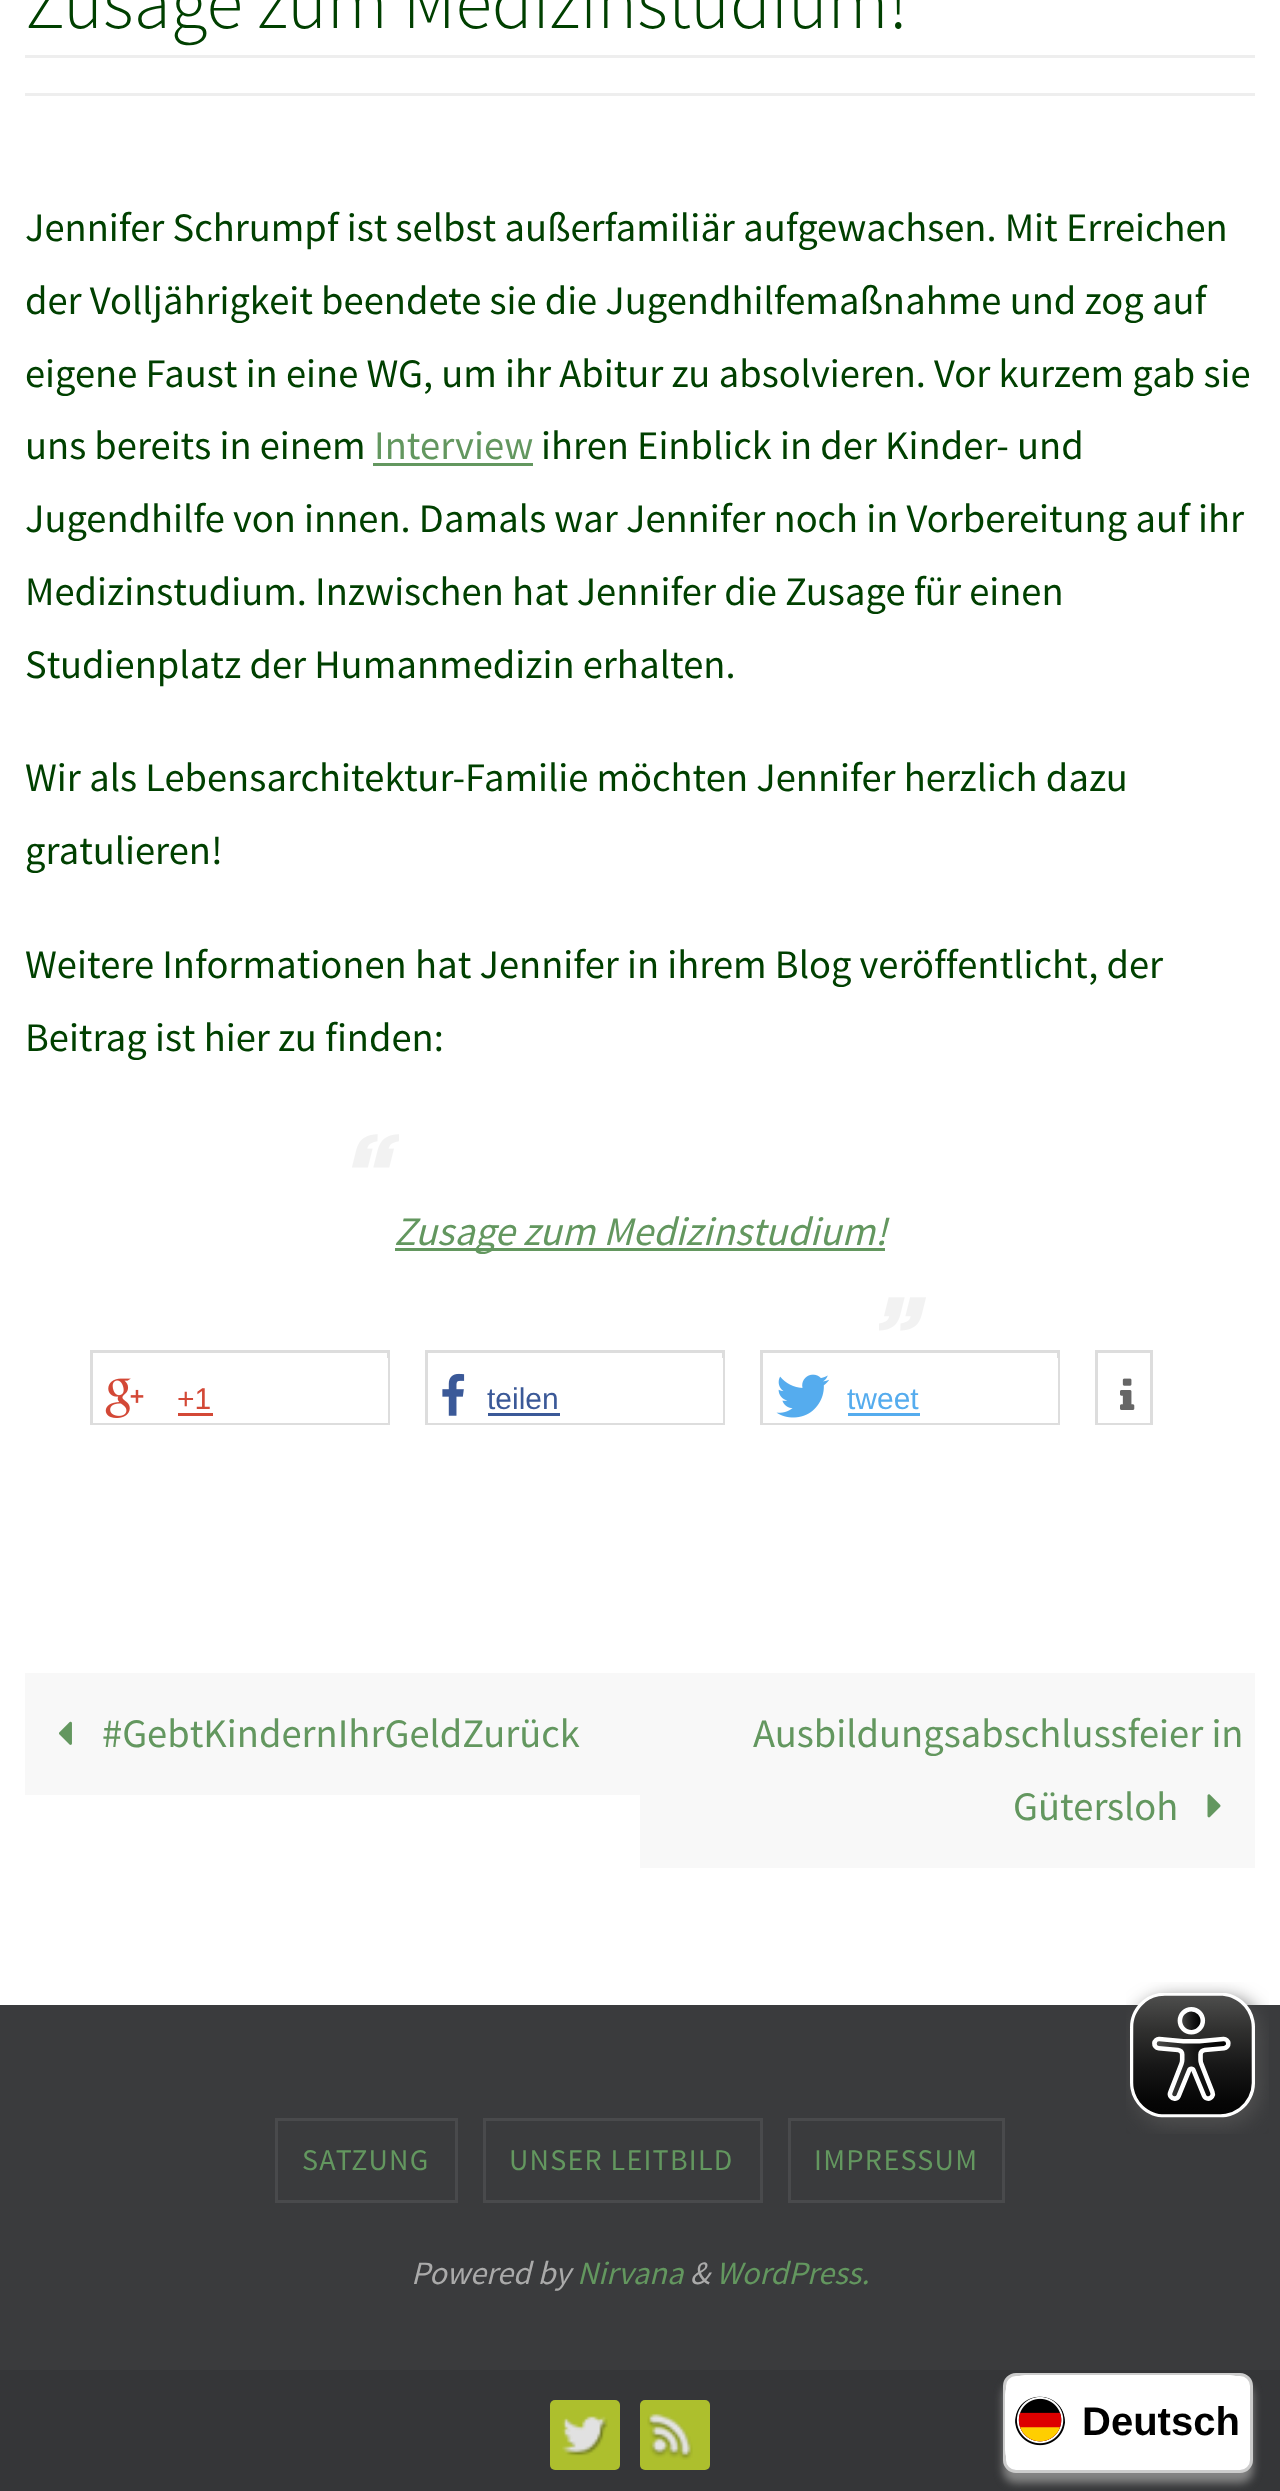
<svg xmlns="http://www.w3.org/2000/svg" xmlns:xlink="http://www.w3.org/1999/xlink" width="1280" height="2491" viewBox="0 0 1280 2491">
<style>
.cls-1{font:300 75px Source Sans Pro;fill:#004000}
.cls-2{font:40.5px Source Sans Pro;fill:#004000}
.cls-3{font:40.5px Source Sans Pro;fill:#63975f}
.cls-4{font:italic 40.5px Source Sans Pro;fill:#63975f}
.cls-5{font:30px Liberation Sans;fill:#d34836}
.cls-6{font:30px Liberation Sans;fill:#3b5998}
.cls-7{font:30px Liberation Sans;fill:#55acee}
.cls-8{font:30px Source Sans Pro;letter-spacing:1.25px;fill:#63975f}
.cls-9{font:italic 32.5px Source Sans Pro;fill:#aaaaaa}
.cls-10{font:italic 32.5px Source Sans Pro;fill:#63975f}
.cls-11{font:bold 40px Liberation Sans;fill:#000000}
</style>
<rect width="100%" height="100%" fill="#ffffff"/>
<rect fill="#eeeeee" x="25" y="55" width="1230" height="3"/>
<rect fill="#eeeeee" x="25" y="93" width="1230" height="3"/>
<rect fill="#63975f" x="373" y="463" width="160" height="3"/>
<image xlink:href="image0.png" x="352" y="1134" width="47" height="34"/>
<rect fill="#63975f" x="395" y="1248" width="490" height="3"/>
<image xlink:href="image1.png" x="879" y="1297" width="47" height="34"/>
<rect fill="none" stroke="#dddddd" stroke-width="3" x="91.5" y="1351.5" width="297" height="72"/>
<rect fill="#ffffff" x="93" y="1358" width="295" height="65"/>
<image xlink:href="image2.png" x="105" y="1378" width="39" height="40"/>
<rect fill="#d34836" x="178" y="1413" width="35" height="3"/>
<rect fill="none" stroke="#dddddd" stroke-width="3" x="426.5" y="1351.5" width="297" height="72"/>
<rect fill="#ffffff" x="428" y="1358" width="295" height="65"/>
<image xlink:href="image3.png" x="442" y="1373" width="23" height="43"/>
<rect fill="#3b5998" x="488" y="1413" width="72" height="3"/>
<rect fill="none" stroke="#dddddd" stroke-width="3" x="761.5" y="1351.5" width="297" height="72"/>
<rect fill="#ffffff" x="763" y="1358" width="295" height="65"/>
<image xlink:href="image4.png" x="776" y="1374" width="54" height="44"/>
<rect fill="#55acee" x="848" y="1413" width="72" height="3"/>
<rect fill="none" stroke="#dddddd" stroke-width="3" x="1096.5" y="1351.5" width="55" height="72"/>
<rect fill="#ffffff" x="1098" y="1422" width="52" height="1"/>
<image xlink:href="image5.png" x="1120" y="1378" width="15" height="32"/>
<rect fill="#f8f8f8" x="25" y="1673" width="615" height="122"/>
<image xlink:href="image6.png" x="59" y="1721" width="13" height="24"/>
<rect fill="#f8f8f8" x="640" y="1673" width="615" height="195"/>
<image xlink:href="image7.png" x="1207" y="1794" width="14" height="24"/>
<rect fill="#3a3b3d" x="0" y="2005" width="1280" height="365"/>
<rect fill="none" stroke="#494a4c" stroke-width="3" x="276.5" y="2119.5" width="180" height="82"/>
<rect fill="none" stroke="#494a4c" stroke-width="3" x="484.5" y="2119.5" width="277" height="82"/>
<rect fill="none" stroke="#494a4c" stroke-width="3" x="789.5" y="2119.5" width="214" height="82"/>
<rect fill="#353638" x="0" y="2370" width="1280" height="121"/>
<rect fill="#adbf2d" x="550" y="2400" width="70" height="70" rx="5"/>
<image xlink:href="image8.png" x="562" y="2416" width="46" height="40"/>
<rect fill="#adbf2d" x="640" y="2400" width="70" height="70" rx="5"/>
<image xlink:href="image9.png" x="647" y="2413" width="46" height="47"/>
<image xlink:href="image10.png" x="1126" y="1982" width="143" height="152"/>
<rect fill="#848484" filter="blur(4px)" x="1003" y="2383" width="250" height="100" rx="13"/>
<rect fill="#ffffff" stroke="#cccccc" stroke-width="3" x="1004.5" y="2374.5" width="247" height="97" rx="11.5"/>
<rect fill="#ffffff" x="1005" y="2375" width="245" height="95" rx="20"/>
<image xlink:href="image11.png" x="1015" y="2396" width="50" height="50"/>
<text class="cls-1" x="25" y="28">Zusage zum Medizinstudium!</text>
<text class="cls-2"><tspan x="25" y="241">Jennifer Schrumpf ist selbst außerfamiliär aufgewachsen. Mit Erreichen</tspan><tspan x="25" y="314">der Volljährigkeit beendete sie die Jugendhilfemaßnahme und zog auf</tspan><tspan x="25" y="387">eigene Faust in eine WG, um ihr Abitur zu absolvieren. Vor kurzem gab sie</tspan><tspan x="25" y="459">uns bereits in einem</tspan></text>
<text class="cls-3" x="374" y="459">Interview</text>
<text class="cls-2" x="541" y="459">ihren Einblick in der Kinder- und</text>
<text class="cls-2"><tspan x="25" y="532">Jugendhilfe von innen. Damals war Jennifer noch in Vorbereitung auf ihr</tspan><tspan x="25" y="605">Medizinstudium. Inzwischen hat Jennifer die Zusage für einen</tspan><tspan x="25" y="678">Studienplatz der Humanmedizin erhalten.</tspan></text>
<text class="cls-2"><tspan x="25" y="791">Wir als Lebensarchitektur-Familie möchten Jennifer herzlich dazu</tspan><tspan x="25" y="864">gratulieren!</tspan></text>
<text class="cls-2"><tspan x="25" y="978">Weitere Informationen hat Jennifer in ihrem Blog veröffentlicht, der</tspan><tspan x="25" y="1051">Beitrag ist hier zu finden:</tspan></text>
<text class="cls-4" x="394" y="1245">Zusage zum Medizinstudium!</text>
<text class="cls-5" x="177" y="1409">+1</text>
<text class="cls-6" x="487" y="1409">teilen</text>
<text class="cls-7" x="847" y="1409">tweet</text>
<text class="cls-3" x="102" y="1747">#GebtKindernIhrGeldZurück</text>
<text class="cls-3" x="753" y="1747">Ausbildungsabschlussfeier in</text>
<text class="cls-3" x="1013" y="1820">Gütersloh</text>
<text class="cls-8" x="302" y="2170">SATZUNG</text>
<text class="cls-8" x="509" y="2170">UNSER LEITBILD</text>
<text class="cls-8" x="814" y="2170">IMPRESSUM</text>
<text class="cls-9" x="411" y="2284">Powered by</text>
<text class="cls-10" x="577" y="2284">Nirvana</text>
<text class="cls-9" x="690" y="2284">&amp;</text>
<text class="cls-10" x="716" y="2284">WordPress.</text>
<text class="cls-11" x="1082" y="2435">Deutsch</text>
</svg>
